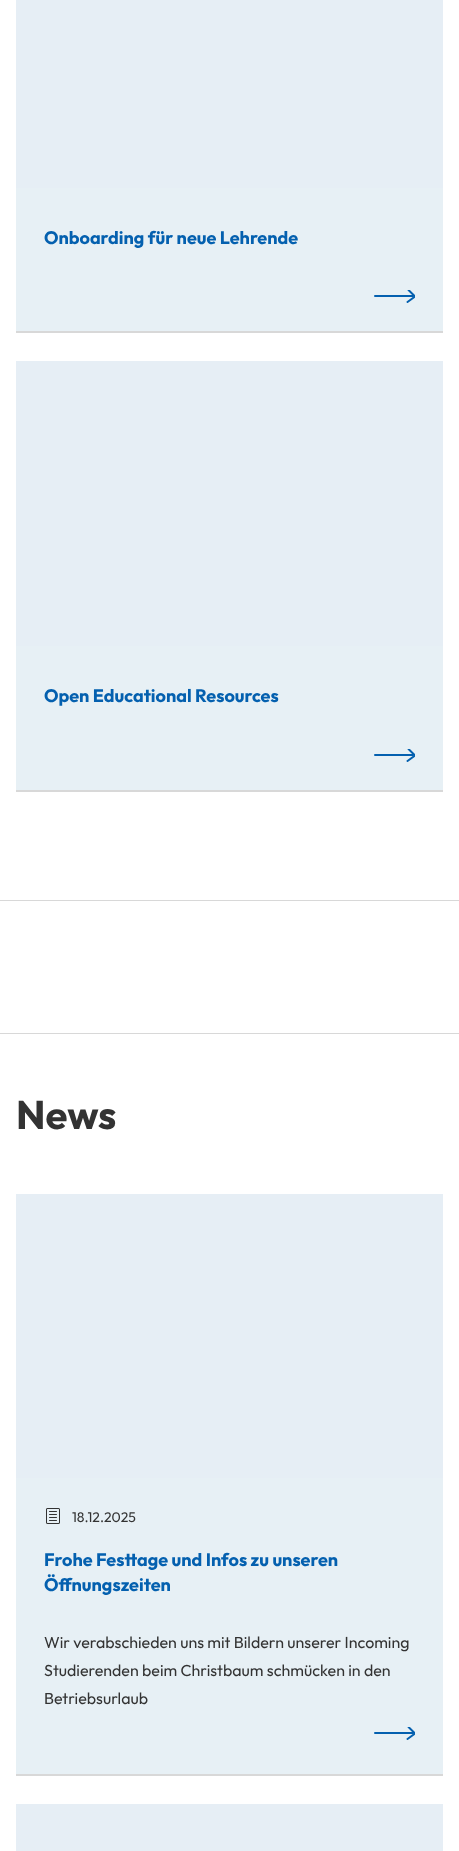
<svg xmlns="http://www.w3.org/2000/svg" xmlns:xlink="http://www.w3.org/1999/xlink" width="459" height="1851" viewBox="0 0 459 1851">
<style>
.cls-1{font:100 18px Outfit;fill:#0460af}
.cls-2{font:100 40px Outfit;fill:#333333}
.cls-3{font:100 14px 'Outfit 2';fill:#333333}
.cls-4{font:100 16px 'Outfit 2';fill:#333333}
</style>
<defs>
<clipPath id="clip1"><rect x="373" y="290" width="42" height="13"/></clipPath>
<clipPath id="clip2"><rect x="373" y="749" width="42" height="13"/></clipPath>
<clipPath id="clip3"><rect x="373" y="1727" width="42" height="13"/></clipPath>
</defs>
<rect width="100%" height="100%" fill="#ffffff"/>
<rect fill="#e7f0f5" x="16" y="188" width="427" height="143"/>
<rect fill="#d8d8d8" x="16" y="331" width="427" height="2"/>
<rect fill="#e6eef5" x="16" y="0" width="427" height="188"/>
<rect fill="#0460af" x="374" y="295" width="40" height="2" rx="1"/>
<g clip-path="url(#clip1)">
<path fill="none" stroke="#0460af" stroke-width="2" stroke-linecap="round" stroke-linejoin="round" d="M408.5 290L415 296.5L407.5 302"/>
</g>
<rect fill="#e7f0f5" x="16" y="646" width="427" height="144"/>
<rect fill="#d8d8d8" x="16" y="790" width="427" height="2"/>
<rect fill="#e6eef5" x="16" y="361" width="427" height="285"/>
<rect fill="#0460af" x="374" y="754" width="40" height="2" rx="1"/>
<g clip-path="url(#clip2)">
<path fill="none" stroke="#0460af" stroke-width="2" stroke-linecap="round" stroke-linejoin="round" d="M408.5 749L415 755.5L407.5 761"/>
</g>
<rect fill="#d8d8d8" x="0" y="900" width="459" height="1"/>
<rect fill="#d8d8d8" x="0" y="1033" width="459" height="1"/>
<rect fill="#e7f0f5" x="16" y="1478" width="427" height="296"/>
<rect fill="#d8d8d8" x="16" y="1774" width="427" height="2"/>
<rect fill="#e6eef5" x="16" y="1194" width="427" height="284"/>
<image xlink:href="image0.png" x="46" y="1508" width="14" height="16"/>
<rect fill="#0460af" x="374" y="1732" width="40" height="2" rx="1"/>
<g clip-path="url(#clip3)">
<path fill="none" stroke="#0460af" stroke-width="2" stroke-linecap="round" stroke-linejoin="round" d="M408.5 1727L415 1733.5L407.5 1739"/>
</g>
<rect fill="#e6eef5" x="16" y="1804" width="427" height="47"/>
<text class="cls-1" x="44" y="244">Onboarding für neue Lehrende</text>
<text class="cls-1" x="44" y="702">Open Educational Resources</text>
<text class="cls-2" x="16" y="1129">News</text>
<text class="cls-3" x="72" y="1522">18.12.2025</text>
<text class="cls-1"><tspan x="44" y="1566">Frohe Festtage und Infos zu unseren</tspan><tspan x="44" y="1591">Öffnungszeiten</tspan></text>
<text class="cls-4"><tspan x="44" y="1648">Wir verabschieden uns mit Bildern unserer Incoming</tspan><tspan x="44" y="1676">Studierenden beim Christbaum schmücken in den</tspan><tspan x="44" y="1704">Betriebsurlaub</tspan></text>
</svg>
